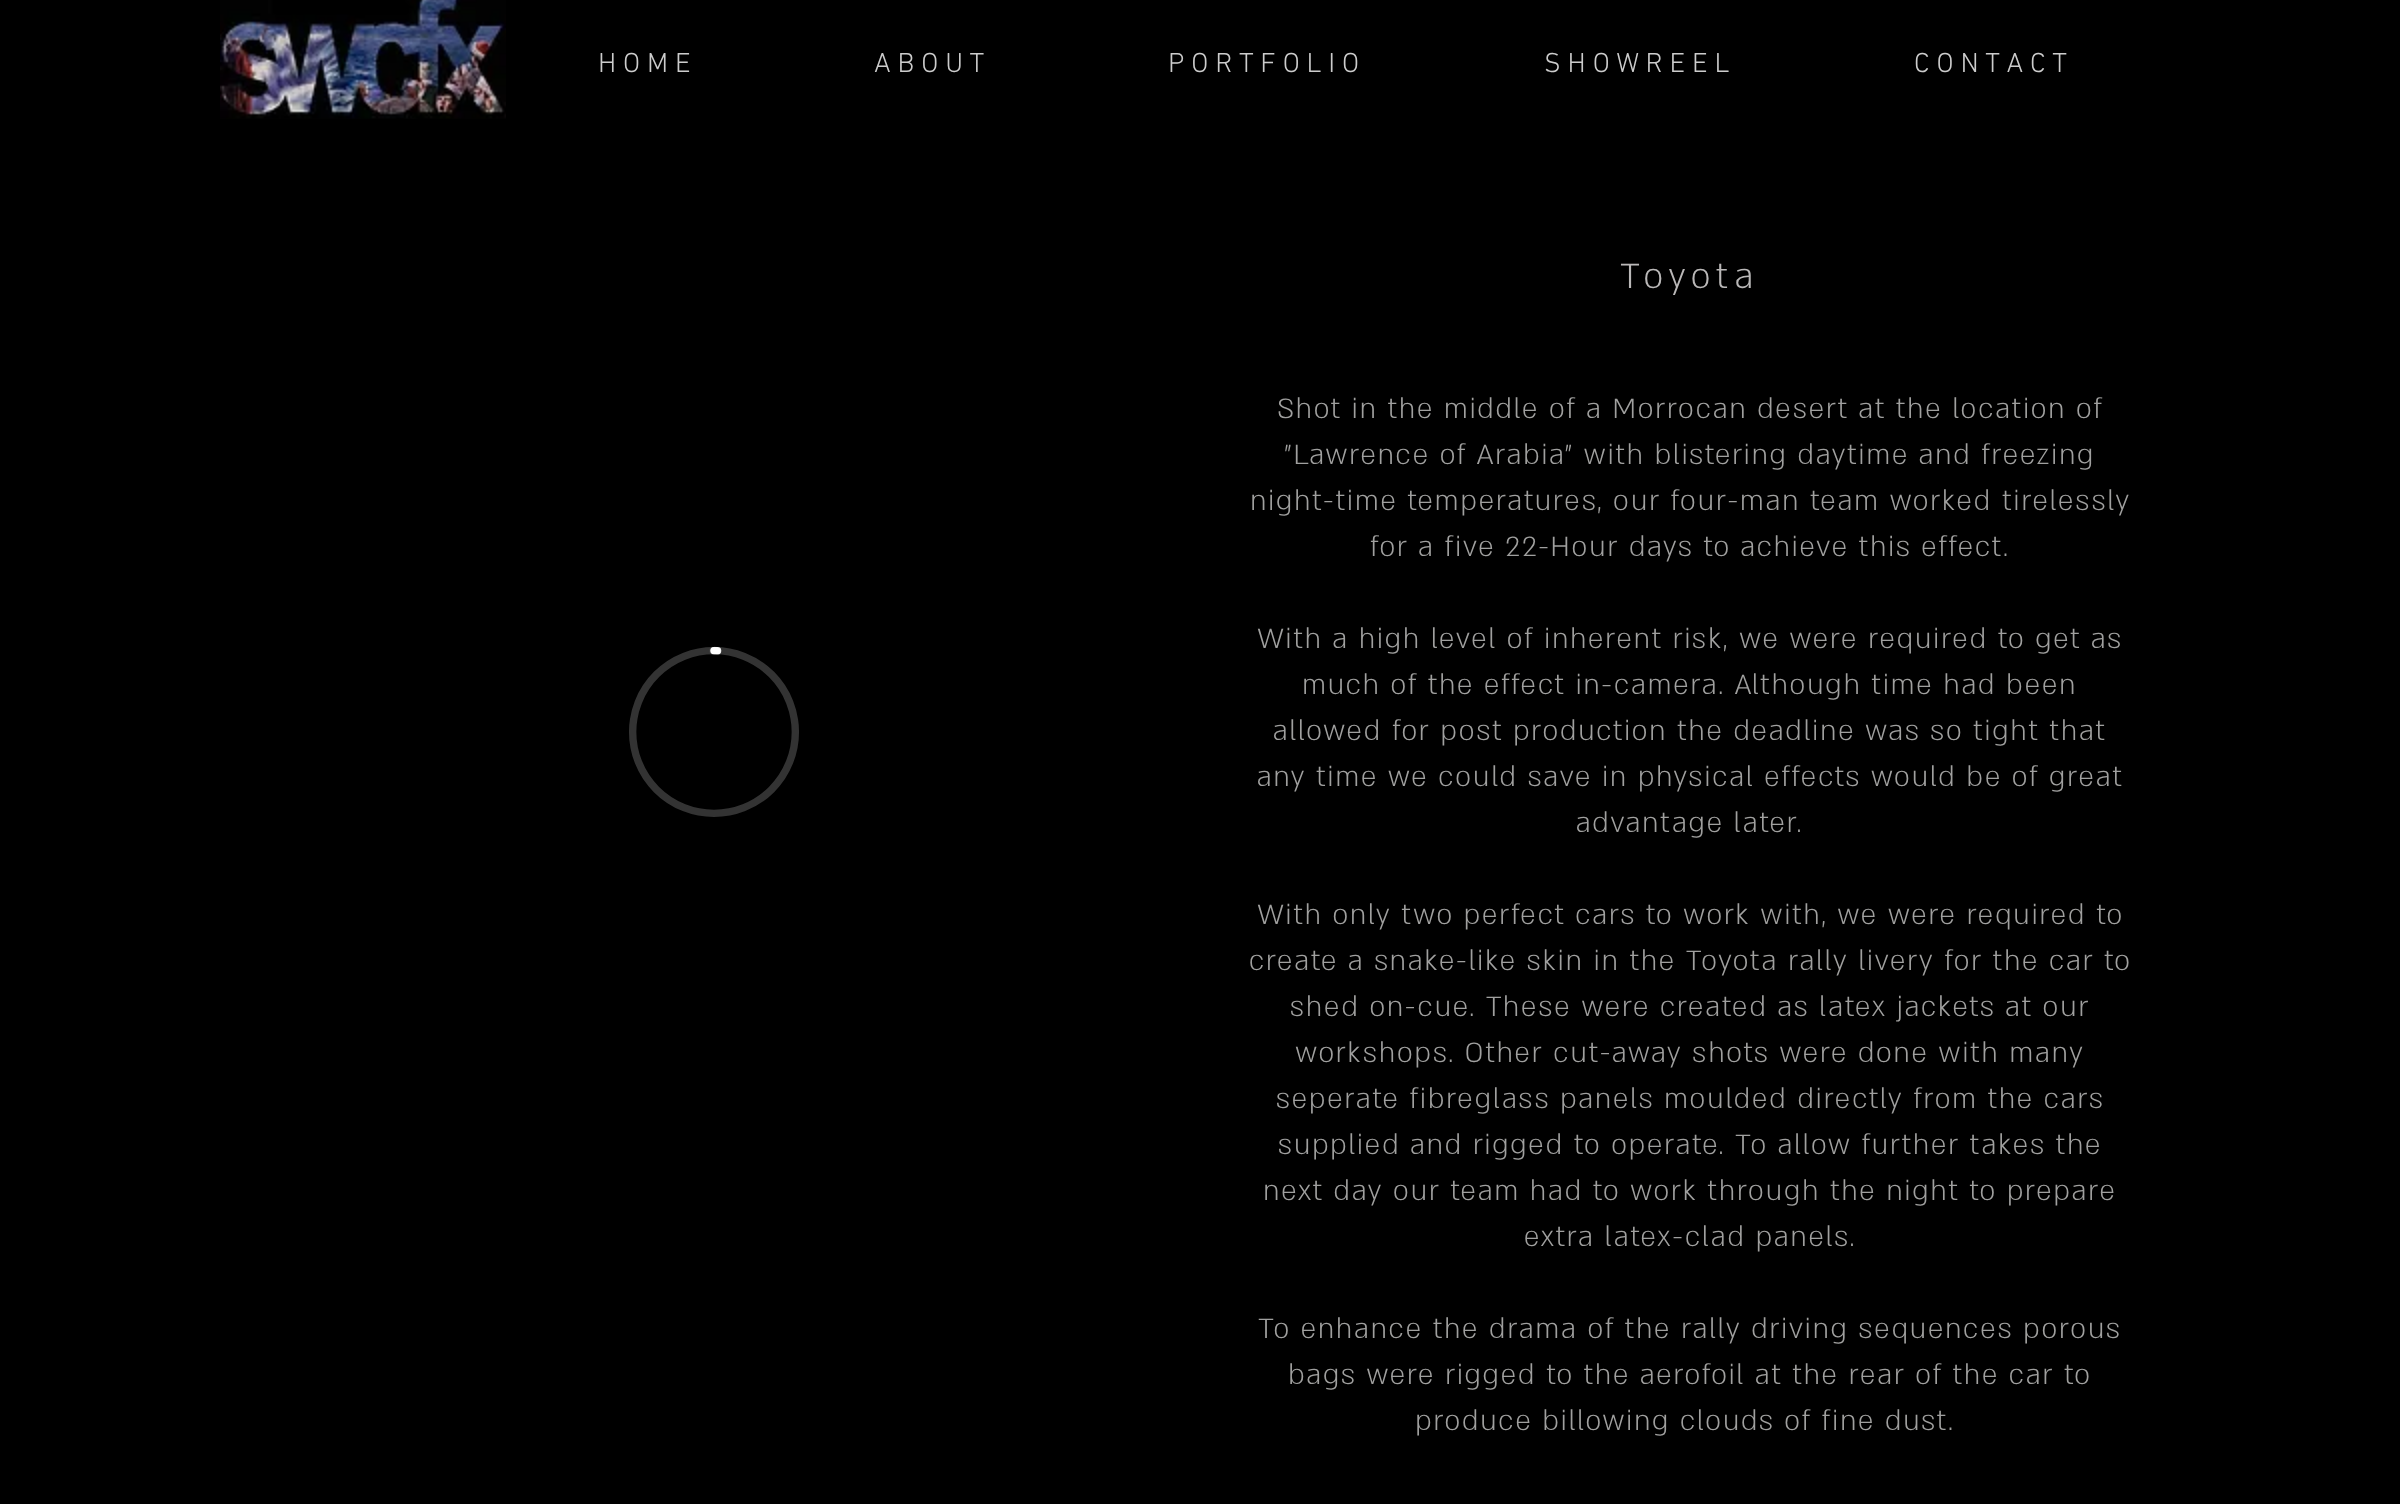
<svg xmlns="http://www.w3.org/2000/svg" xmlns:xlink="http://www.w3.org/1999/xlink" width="2400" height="1504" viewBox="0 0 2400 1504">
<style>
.cls-1{font:300 28px 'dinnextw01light';fill:#cccccc}
.cls-2{font:300 40px 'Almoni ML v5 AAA';letter-spacing:6px;fill:#bab8b8}
.cls-3{font:300 32px 'Almoni ML v5 AAA';letter-spacing:1.6px;fill:#a0a09f}
</style>
<rect width="100%" height="100%" fill="#000000"/>
<image xlink:href="image0.png" x="220" y="0" width="286" height="119"/>
<image xlink:href="image1.png" x="629" y="646" width="170" height="171"/>
<text class="cls-1" x="598" y="72">H O M E</text>
<text class="cls-1" x="874" y="72">A B O U T</text>
<text class="cls-1" x="1168" y="72">P O R T F O L I O</text>
<text class="cls-1" x="1544" y="72">S H O W R E E L</text>
<text class="cls-1" x="1914" y="72">C O N T A C T</text>
<text class="cls-2" x="1620" y="288">Toyota</text>
<text class="cls-3" x="1277" y="418">Shot in the middle of a Morrocan desert at the location of</text>
<text class="cls-3" x="1284" y="464">"Lawrence of Arabia" with blistering daytime and freezing</text>
<text class="cls-3" x="1250" y="510">night-time temperatures, our four-man team worked tirelessly</text>
<text class="cls-3" x="1370" y="556">for a five 22-Hour days to achieve this effect.</text>
<text class="cls-3" x="1257" y="648">With a high level of inherent risk, we were required to get as</text>
<text class="cls-3" x="1302" y="694">much of the effect in-camera. Although time had been</text>
<text class="cls-3" x="1273" y="740">allowed for post production the deadline was so tight that</text>
<text class="cls-3" x="1257" y="786">any time we could save in physical effects would be of great</text>
<text class="cls-3" x="1576" y="832">advantage later.</text>
<text class="cls-3" x="1257" y="924">With only two perfect cars to work with, we were required to</text>
<text class="cls-3" x="1249" y="970">create a snake-like skin in the Toyota rally livery for the car to</text>
<text class="cls-3" x="1290" y="1016">shed on-cue. These were created as latex jackets at our</text>
<text class="cls-3" x="1295" y="1062">workshops. Other cut-away shots were done with many</text>
<text class="cls-3" x="1276" y="1108">seperate fibreglass panels moulded directly from the cars</text>
<text class="cls-3" x="1278" y="1154">supplied and rigged to operate. To allow further takes the</text>
<text class="cls-3" x="1263" y="1200">next day our team had to work through the night to prepare</text>
<text class="cls-3" x="1524" y="1246">extra latex-clad panels.</text>
<text class="cls-3" x="1258" y="1338">To enhance the drama of the rally driving sequences porous</text>
<text class="cls-3" x="1288" y="1384">bags were rigged to the aerofoil at the rear of the car to</text>
<text class="cls-3" x="1415" y="1430">produce billowing clouds of fine dust.</text>
</svg>
